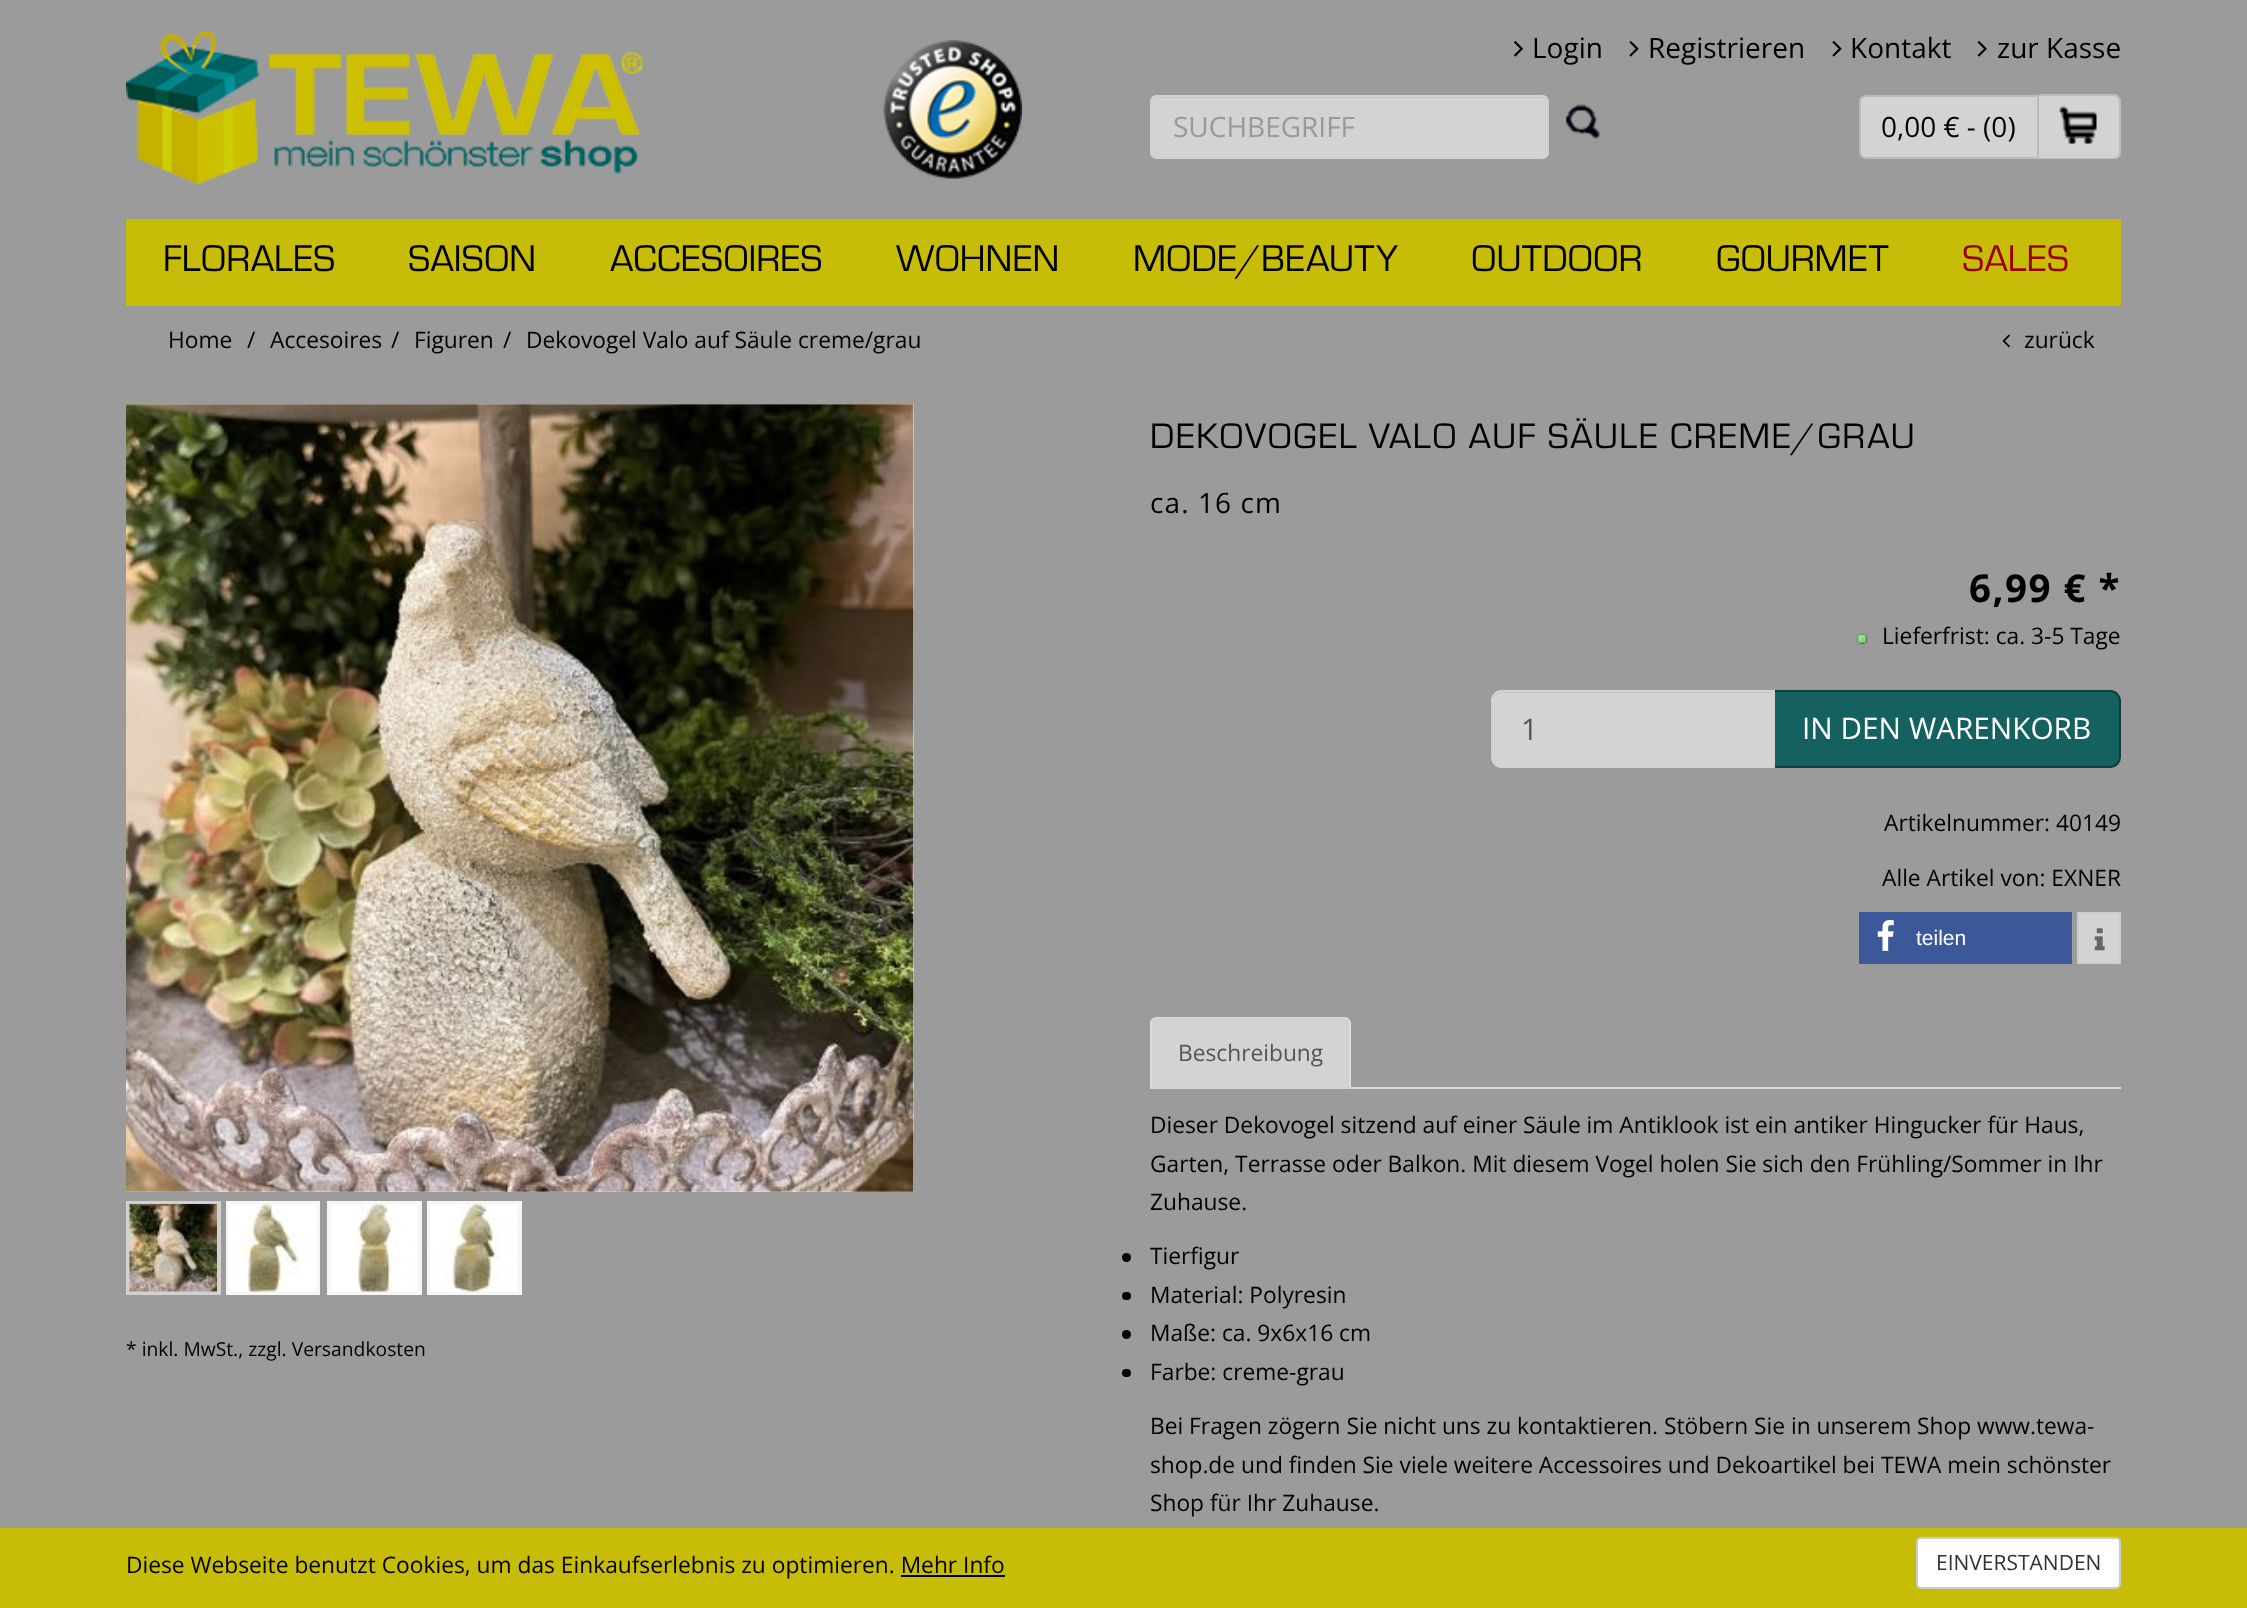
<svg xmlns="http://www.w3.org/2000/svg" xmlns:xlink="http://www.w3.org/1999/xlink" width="2247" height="1608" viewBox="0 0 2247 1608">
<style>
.cls-1{font:28px Open Sans;fill:#000000}
.cls-2{font:28px Open Sans;fill:#999999}
.cls-3{font:38.5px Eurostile;fill:#000000}
.cls-4{font:38.5px Eurostile;fill:#990000}
.cls-5{font:22.75px Open Sans;fill:#000000}
.cls-6{font:19.3px Open Sans;fill:#000000}
.cls-7{font:36.75px Eurostile;letter-spacing:1.45px;fill:#000000}
.cls-8{font:28px Open Sans;letter-spacing:1.1px;fill:#000000}
.cls-9{font:bold 38.5px Open Sans;letter-spacing:1.5px;fill:#000000}
.cls-10{font:29.75px Open Sans;fill:#555555}
.cls-11{font:29.75px Open Sans;fill:#ffffff}
.cls-12{font:21px Liberation Sans;fill:#ffffff}
.cls-13{font:22.75px Open Sans;fill:#555555}
.cls-14{font:21px Open Sans;fill:#333333}
</style>
<rect width="100%" height="100%" fill="#9b9b9b"/>
<image xlink:href="image0.png" x="126" y="31" width="517" height="153"/>
<image xlink:href="image1.png" x="883" y="40" width="139" height="139"/>
<image xlink:href="image2.png" x="1514" y="41" width="9" height="16"/>
<image xlink:href="image3.png" x="1629" y="41" width="10" height="16"/>
<image xlink:href="image3.png" x="1832" y="41" width="10" height="16"/>
<image xlink:href="image4.png" x="1977" y="41" width="10" height="16"/>
<rect fill="#d3d3d3" x="1150" y="95" width="399" height="64" rx="7"/>
<path fill="#c3c3c3" d="M1157 98H1542C1545 98 1547 100 1547 103V101C1547 98 1545 96 1542 96H1157C1154 96 1152 98 1152 101V103C1152 100 1154 98 1157 98Z"/>
<rect fill="none" stroke="#d1d1d1" stroke-width="2" x="1151" y="96" width="397" height="62" rx="6"/>
<image xlink:href="image5.png" x="1566" y="104" width="34" height="35"/>
<path fill="#d3d3d3" stroke="#bbbbbb" stroke-width="2" d="M1866 96H2038V158H1866C1862.5 158 1860 155.5 1860 152V102C1860 98.5 1862.5 96 1866 96Z"/>
<path fill="#d3d3d3" d="M2039 95H2114C2118 95 2121 98 2121 102V152C2121 156 2118 159 2114 159H2039Z"/>
<path fill="#bbbbbb" fill-rule="evenodd" d="M2039 94H2114C2118 94 2121 98 2121 102V152C2121 156 2118 159 2114 159H2039ZM2039 96H2114C2117 96 2119 99 2119 102V152C2119 155 2117 158 2114 158H2039Z"/>
<image xlink:href="image6.png" x="2059" y="106" width="38" height="38"/>
<rect fill="#c7bc07" x="126" y="219" width="1995" height="87"/>
<image xlink:href="image7.png" x="2002" y="334" width="8" height="14"/>
<rect fill="#ffffff" x="126" y="404" width="788" height="788"/>
<image xlink:href="image8.png" x="126" y="404" width="788" height="788"/>
<rect fill="none" stroke="#d1d1d1" stroke-width="4" x="128" y="1203" width="91" height="90"/>
<rect fill="none" stroke="#f6f6f6" stroke-width="4" x="228" y="1203" width="90" height="90"/>
<rect fill="none" stroke="#f6f6f6" stroke-width="4" x="329" y="1203" width="91" height="90"/>
<rect fill="none" stroke="#f6f6f6" stroke-width="4" x="429" y="1203" width="91" height="90"/>
<image xlink:href="image9.png" x="129" y="1204" width="88" height="88"/>
<image xlink:href="image10.png" x="229" y="1204" width="88" height="88"/>
<image xlink:href="image11.png" x="331" y="1204" width="87" height="88"/>
<image xlink:href="image12.png" x="430" y="1204" width="88" height="88"/>
<image xlink:href="image13.png" x="1856" y="633" width="12" height="12"/>
<path fill="#156160" stroke="#0f3d3c" stroke-width="2" d="M1774 691H2110C2115.5 691 2120 695.5 2120 701V757C2120 762.5 2115.5 767 2110 767H1774Z"/>
<path fill="#d3d3d3" d="M1502 690H1775V768H1502C1496 768 1491 763 1491 757V701C1491 695 1496 690 1502 690Z"/>
<path fill="#c3c3c3" d="M1502 693H1773V691H1502C1497 691 1493 695 1493 700V702C1493 697 1497 693 1502 693Z"/>
<path fill="none" stroke="#d1d1d1" stroke-width="2" d="M1502 691H1774V767H1502C1496.5 767 1492 762.5 1492 757V701C1492 695.5 1496.5 691 1502 691Z"/>
<rect fill="#3b5998" x="1859" y="912" width="213" height="52"/>
<image xlink:href="image14.png" x="1877" y="920" width="17" height="31"/>
<rect fill="none" stroke="#cccccc" stroke-width="2" x="2078" y="913" width="42" height="50"/>
<rect fill="#d3d3d3" x="2079" y="914" width="40" height="49"/>
<image xlink:href="image15.png" x="2094" y="928" width="11" height="23"/>
<rect fill="#dddddd" x="1351" y="1087" width="770" height="2"/>
<path fill="#d3d3d3" d="M1157 1017H1344C1348 1017 1351 1020 1351 1024V1089H1150V1024C1150 1020 1153 1017 1157 1017Z"/>
<path fill="#dddddd" d="M1157 1017C1155 1017 1153 1018 1152 1019L1153 1020L1156 1018H1344C1346 1018 1347 1019 1348 1020L1349 1019C1348 1018 1346 1017 1344 1017Z"/>
<path fill="#dddddd" d="M1349 1019C1350 1020 1351 1022 1351 1024V1088L1349 1086V1024C1349 1023 1349 1021 1348 1020Z"/>
<path fill="#dddddd" d="M1152 1019C1151 1020 1150 1022 1150 1024V1088L1152 1086V1024C1152 1023 1152 1021 1153 1020Z"/>
<circle fill="#000000" cx="1126.5" cy="1257.5" r="4.5"/>
<rect fill="#000000" x="1122" y="1292" width="9" height="8" rx="4"/>
<circle fill="#000000" cx="1126.5" cy="1334.5" r="4.5"/>
<rect fill="#000000" x="1122" y="1369" width="9" height="8" rx="4"/>
<rect fill="#c7bc07" x="0" y="1528" width="2247" height="80"/>
<rect fill="#000000" x="901" y="1575" width="104" height="2"/>
<rect fill="#ffffff" stroke="#cccccc" stroke-width="2" x="1917" y="1538" width="203" height="50" rx="4"/>
<text class="cls-1" x="1532" y="58">Login</text>
<text class="cls-1" x="1648" y="58">Registrieren</text>
<text class="cls-1" x="1850" y="58">Kontakt</text>
<text class="cls-1" x="1997" y="58">zur Kasse</text>
<text class="cls-2" x="1173" y="137">SUCHBEGRIFF</text>
<text class="cls-1" x="1881" y="137">0,00 € - (0)</text>
<text class="cls-3" x="163" y="271">FLORALES</text>
<text class="cls-3" x="408" y="271">SAISON</text>
<text class="cls-3" x="610" y="271">ACCESOIRES</text>
<text class="cls-3" x="896" y="271">WOHNEN</text>
<text class="cls-3" x="1133" y="271">MODE/BEAUTY</text>
<text class="cls-3" x="1471" y="271">OUTDOOR</text>
<text class="cls-3" x="1716" y="271">GOURMET</text>
<text class="cls-4" x="1962" y="271">SALES</text>
<text class="cls-5" x="168" y="348">Home</text>
<text class="cls-5" x="247" y="348">/</text>
<text class="cls-5" x="270" y="348">Accesoires</text>
<text class="cls-5" x="391" y="348">/</text>
<text class="cls-5" x="414" y="348">Figuren</text>
<text class="cls-5" x="503" y="348">/</text>
<text class="cls-5" x="526" y="348">Dekovogel Valo auf Säule creme/grau</text>
<text class="cls-5" x="2024" y="348">zurück</text>
<text class="cls-6" x="126" y="1356">* inkl. MwSt., zzgl. Versandkosten</text>
<text class="cls-7" x="1150" y="448">DEKOVOGEL VALO AUF SÄULE CREME/GRAU</text>
<text class="cls-8" x="1150" y="513">ca. 16 cm</text>
<text class="cls-9" x="1969" y="602">6,99 € *</text>
<text class="cls-5" x="1882" y="644">Lieferfrist: ca. 3-5 Tage</text>
<text class="cls-10" x="1521" y="740">1</text>
<text class="cls-11" x="1802" y="739">IN DEN WARENKORB</text>
<text class="cls-5" x="1884" y="831">Artikelnummer: 40149</text>
<text class="cls-5" x="1882" y="886">Alle Artikel von: EXNER</text>
<text class="cls-12" x="1916" y="945">teilen</text>
<text class="cls-13" x="1178" y="1061">Beschreibung</text>
<text class="cls-5"><tspan x="1150" y="1133">Dieser Dekovogel sitzend auf einer Säule im Antiklook ist ein antiker Hingucker für Haus,</tspan><tspan x="1150" y="1172">Garten, Terrasse oder Balkon. Mit diesem Vogel holen Sie sich den Frühling/Sommer in Ihr</tspan><tspan x="1150" y="1210">Zuhause.</tspan></text>
<text class="cls-5"><tspan x="1150" y="1264">Tierfigur</tspan><tspan x="1150" y="1303">Material: Polyresin</tspan><tspan x="1150" y="1341">Maße: ca. 9x6x16 cm</tspan><tspan x="1150" y="1380">Farbe: creme-grau</tspan></text>
<text class="cls-5"><tspan x="1150" y="1434">Bei Fragen zögern Sie nicht uns zu kontaktieren. Stöbern Sie in unserem Shop www.tewa-</tspan><tspan x="1150" y="1473">shop.de und finden Sie viele weitere Accessoires und Dekoartikel bei TEWA mein schönster</tspan><tspan x="1150" y="1511">Shop für Ihr Zuhause.</tspan></text>
<text class="cls-5" x="126" y="1573">Diese Webseite benutzt Cookies, um das Einkaufserlebnis zu optimieren. Mehr Info</text>
<text class="cls-14" x="1936" y="1570">EINVERSTANDEN</text>
</svg>
